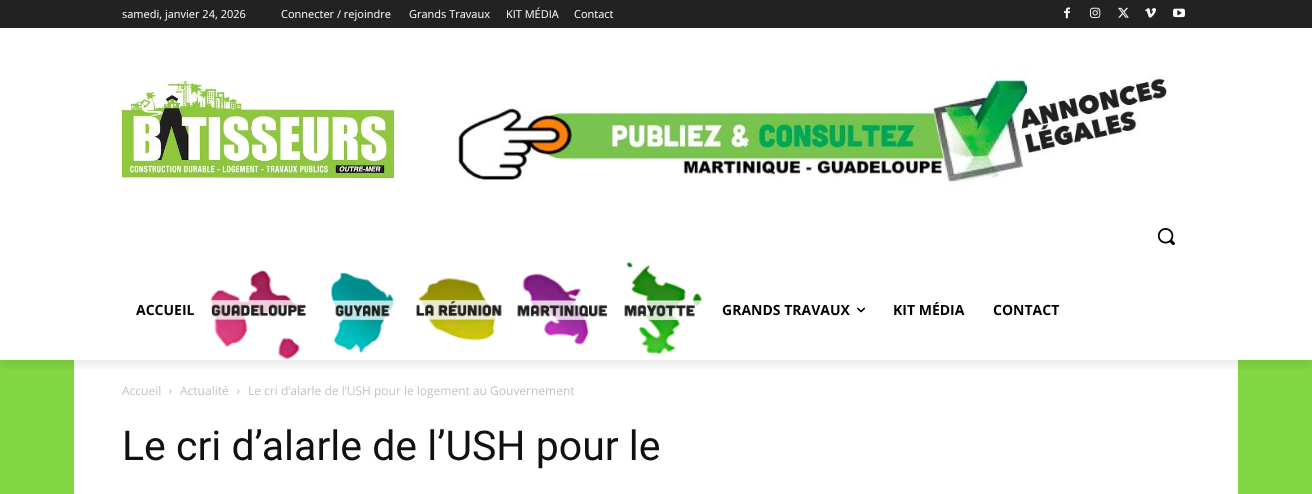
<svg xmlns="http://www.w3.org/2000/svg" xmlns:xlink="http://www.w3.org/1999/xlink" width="1312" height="494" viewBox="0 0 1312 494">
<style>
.cls-1{font:11px Open Sans;fill:#ffffff}
.cls-2{font:bold 14px Open Sans;fill:#000000}
.cls-3{font:12px Open Sans;fill:#c3c3c3}
.cls-4{font:41px Roboto;fill:#111111}
</style>
<defs>
<clipPath id="clip1"><rect x="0" y="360" width="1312" height="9"/></clipPath>
</defs>
<rect width="100%" height="100%" fill="#81d742"/>
<rect fill="#222222" x="0" y="0" width="1312" height="28"/>
<image xlink:href="image0.png" x="1064" y="7" width="6" height="12"/>
<image xlink:href="image1.png" x="1090" y="7" width="11" height="11"/>
<image xlink:href="image2.png" x="1118" y="7" width="11" height="11"/>
<image xlink:href="image3.png" x="1145" y="8" width="11" height="10"/>
<image xlink:href="image4.png" x="1173" y="8" width="12" height="10"/>
<rect fill="#ffffff" x="0" y="28" width="1312" height="332"/>
<image xlink:href="image5.png" x="122" y="81" width="272" height="97"/>
<image xlink:href="image6.png" x="455" y="69" width="712" height="117"/>
<image xlink:href="image8.png" x="209" y="270" width="98" height="90"/>
<image xlink:href="image9.png" x="330" y="272" width="65" height="83"/>
<image xlink:href="image10.png" x="415" y="277" width="87" height="64"/>
<image xlink:href="image11.png" x="517" y="273" width="91" height="72"/>
<image xlink:href="image12.png" x="624" y="261" width="79" height="94"/>
<rect fill="#ffffff" x="74" y="360" width="1164" height="134"/>
<g clip-path="url(#clip1)">
<rect fill="#000000" fill-opacity="0.08" filter="blur(4px)" x="0" y="6" width="1312" height="360"/>
</g>
<image xlink:href="image7.png" x="1157" y="228" width="18" height="18"/>
<image xlink:href="image13.png" x="857" y="307" width="9" height="6"/>
<image xlink:href="image14.png" x="169" y="389" width="3" height="5"/>
<image xlink:href="image14.png" x="237" y="389" width="3" height="5"/>
<text class="cls-1" x="122" y="18">samedi, janvier 24, 2026</text>
<text class="cls-1" x="281" y="18">Connecter / rejoindre</text>
<text class="cls-1" x="409" y="18">Grands Travaux</text>
<text class="cls-1" x="506" y="18">KIT MÉDIA</text>
<text class="cls-1" x="574" y="18">Contact</text>
<text class="cls-2" x="136" y="315">ACCUEIL</text>
<text class="cls-2" x="722" y="315">GRANDS TRAVAUX</text>
<text class="cls-2" x="893" y="315">KIT MÉDIA</text>
<text class="cls-2" x="993" y="315">CONTACT</text>
<text class="cls-3" x="122" y="395">Accueil</text>
<text class="cls-3" x="180" y="395">Actualité</text>
<text class="cls-3" x="248" y="395">Le cri d’alarle de l’USH pour le logement au Gouvernement</text>
<text class="cls-4" x="122" y="460">Le cri d’alarle de l’USH pour le</text>
</svg>
